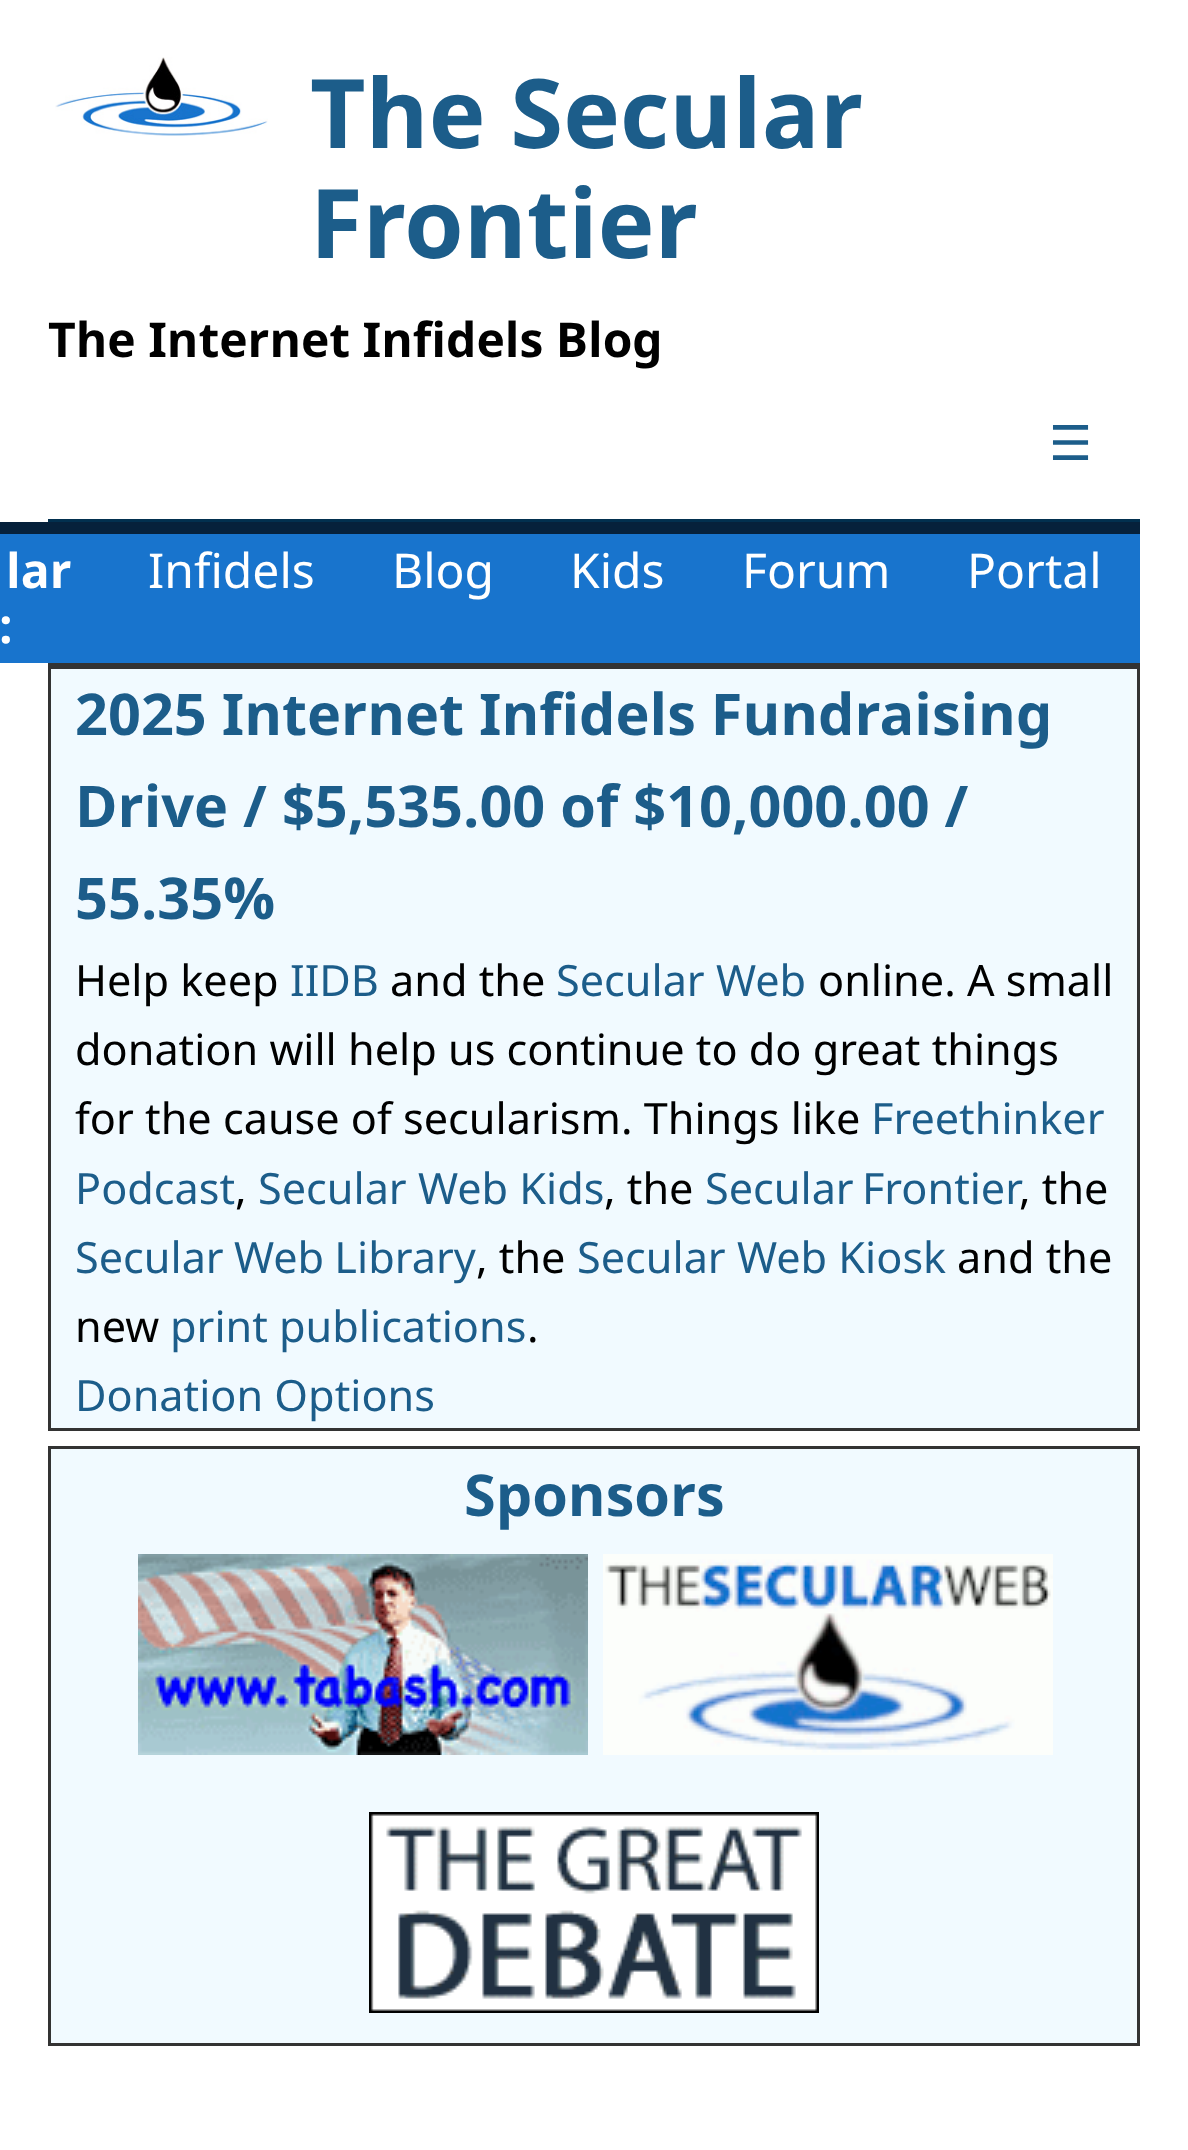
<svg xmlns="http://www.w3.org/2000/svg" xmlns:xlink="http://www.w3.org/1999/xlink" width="1188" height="2150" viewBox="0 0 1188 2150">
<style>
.cls-1{font:bold 96px Noto Sans;fill:#1c5d8a}
.cls-2{font:bold 48px Noto Sans;fill:#000000}
.cls-3{font:48px DejaVu Sans;fill:#1c5d8a}
.cls-4{font:bold 48px Noto Sans;fill:#ffffff}
.cls-5{font:48px Noto Sans;fill:#ffffff}
.cls-6{font:bold 57.6px Noto Sans;fill:#1c5d8a}
.cls-7{font:43.2px Noto Sans;fill:#000000}
.cls-8{font:43.2px Noto Sans;fill:#1c5d8a}
</style>
<rect width="100%" height="100%" fill="#ffffff"/>
<image xlink:href="image0.png" x="55" y="57" width="213" height="79"/>
<rect fill="#02304f" x="48" y="519" width="1092" height="3"/>
<rect fill="#06213b" x="0" y="522" width="1140" height="12"/>
<rect fill="#1874cd" x="0" y="534" width="1140" height="129"/>
<rect fill="#333333" x="48" y="663" width="1092" height="3"/>
<rect fill="#f1faff" stroke="#333333" stroke-width="3" x="49.5" y="667.5" width="1089" height="762"/>
<rect fill="#f1faff" stroke="#333333" stroke-width="3" x="49.5" y="1447.5" width="1089" height="597"/>
<image xlink:href="image1.png" x="138" y="1554" width="450" height="201"/>
<image xlink:href="image2.png" x="603" y="1554" width="450" height="201"/>
<image xlink:href="image3.png" x="369" y="1812" width="450" height="201"/>
<text class="cls-1"><tspan x="310" y="148">The Secular</tspan><tspan x="310" y="258">Frontier</tspan></text>
<text class="cls-2" x="48" y="357">The Internet Infidels Blog</text>
<text class="cls-3" x="1049" y="460">☰</text>
<text class="cls-4" x="6" y="588">lar</text>
<text class="cls-4" x="-1" y="643">:</text>
<text class="cls-5" x="148" y="588">Infidels</text>
<text class="cls-5" x="392" y="588">Blog</text>
<text class="cls-5" x="570" y="588">Kids</text>
<text class="cls-5" x="742" y="588">Forum</text>
<text class="cls-5" x="967" y="588">Portal</text>
<text class="cls-6"><tspan x="75" y="735">2025 Internet Infidels Fundraising</tspan><tspan x="75" y="827">Drive / $5,535.00 of $10,000.00 /</tspan><tspan x="75" y="919">55.35%</tspan></text>
<text class="cls-7" x="75" y="996">Help keep</text>
<text class="cls-8" x="290" y="996">IIDB</text>
<text class="cls-7" x="390" y="996">and the</text>
<text class="cls-8" x="556" y="996">Secular Web</text>
<text class="cls-7" x="818" y="996">online. A small</text>
<text class="cls-7"><tspan x="75" y="1065">donation will help us continue to do great things</tspan><tspan x="75" y="1134">for the cause of secularism. Things like</tspan></text>
<text class="cls-8" x="871" y="1134">Freethinker</text>
<text class="cls-8" x="75" y="1204">Podcast</text>
<text class="cls-7" x="235" y="1204">,</text>
<text class="cls-8" x="258" y="1204">Secular Web Kids</text>
<text class="cls-7" x="604" y="1204">, the</text>
<text class="cls-8" x="705" y="1204" word-spacing="-3">Secular Frontier</text>
<text class="cls-7" x="1019" y="1204">, the</text>
<text class="cls-8" x="75" y="1273" word-spacing="-1">Secular Web Library</text>
<text class="cls-7" x="476" y="1273">, the</text>
<text class="cls-8" x="577" y="1273">Secular Web Kiosk</text>
<text class="cls-7" x="957" y="1273">and the</text>
<text class="cls-7" x="75" y="1342">new</text>
<text class="cls-8" x="170" y="1342">print publications</text>
<text class="cls-7" x="527" y="1342">.</text>
<text class="cls-8" x="75" y="1411">Donation Options</text>
<text class="cls-6" x="464" y="1516">Sponsors</text>
</svg>
